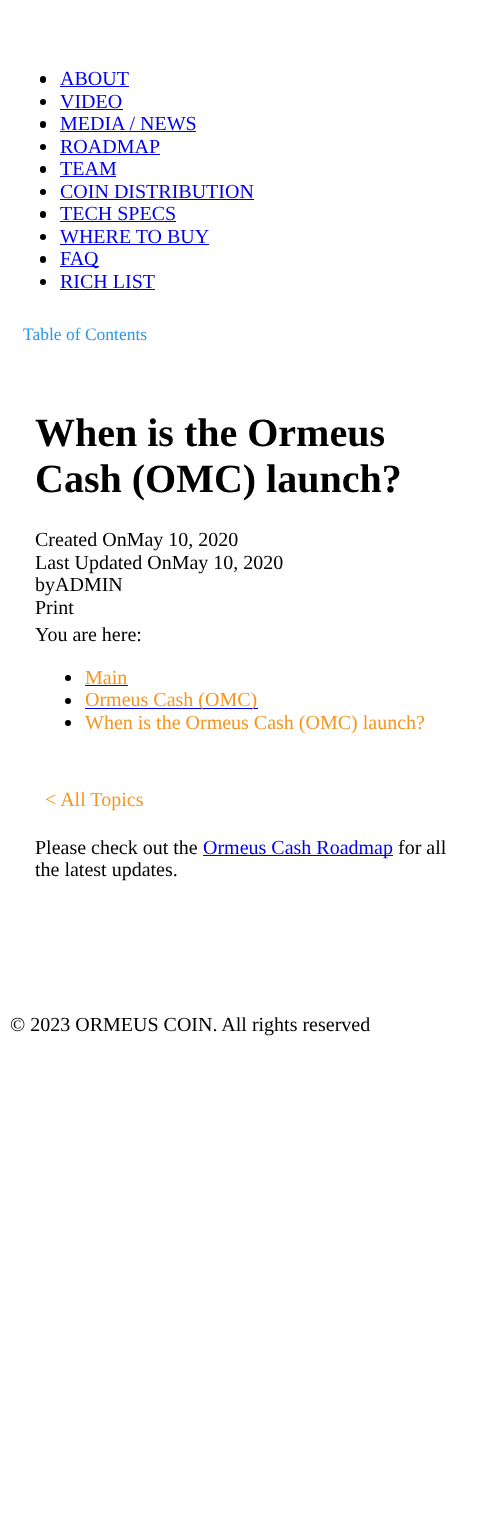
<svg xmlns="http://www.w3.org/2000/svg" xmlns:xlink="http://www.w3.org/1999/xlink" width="485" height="1517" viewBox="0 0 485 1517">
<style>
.cls-1{font:20px Liberation Serif;fill:#0000ee}
.cls-2{font:17.5px Liberation Serif;fill:#2b98e5}
.cls-3{font:bold 40px Liberation Serif;fill:#000000}
.cls-4{font:20px Liberation Serif;fill:#000000}
.cls-5{font:20px Liberation Serif;fill:#f7941d}
</style>
<rect width="100%" height="100%" fill="#ffffff"/>
<rect fill="#000000" x="40" y="76" width="6" height="7" rx="3"/>
<rect fill="#0000ee" x="60" y="86" width="69" height="1"/>
<circle fill="#000000" cx="43" cy="102" r="3"/>
<rect fill="#0000ee" x="60" y="109" width="63" height="1"/>
<rect fill="#000000" x="40" y="121" width="6" height="7" rx="3"/>
<rect fill="#0000ee" x="60" y="131" width="136" height="1"/>
<circle fill="#000000" cx="43" cy="147" r="3"/>
<rect fill="#0000ee" x="60" y="154" width="100" height="1"/>
<rect fill="#000000" x="40" y="166" width="6" height="7" rx="3"/>
<rect fill="#0000ee" x="60" y="176" width="56" height="1"/>
<circle fill="#000000" cx="43" cy="192" r="3"/>
<rect fill="#0000ee" x="60" y="199" width="194" height="1"/>
<rect fill="#000000" x="40" y="211" width="6" height="7" rx="3"/>
<rect fill="#0000ee" x="60" y="221" width="116" height="1"/>
<circle fill="#000000" cx="43" cy="237" r="3"/>
<rect fill="#0000ee" x="60" y="244" width="149" height="1"/>
<rect fill="#000000" x="40" y="256" width="6" height="7" rx="3"/>
<rect fill="#0000ee" x="60" y="266" width="39" height="1"/>
<circle fill="#000000" cx="43" cy="282" r="3"/>
<rect fill="#0000ee" x="60" y="289" width="95" height="1"/>
<circle fill="#000000" cx="68" cy="678" r="3"/>
<rect fill="#0000ee" x="85" y="685" width="43" height="1"/>
<circle fill="#000000" cx="68" cy="701" r="3"/>
<rect fill="#0000ee" x="85" y="708" width="173" height="1"/>
<circle fill="#000000" cx="68" cy="723" r="3"/>
<rect fill="#0000ee" x="203" y="855" width="190" height="1"/>
<text class="cls-1"><tspan x="60" y="85">ABOUT</tspan><tspan x="60" y="108">VIDEO</tspan><tspan x="60" y="130">MEDIA / NEWS</tspan><tspan x="60" y="153">ROADMAP</tspan><tspan x="60" y="175">TEAM</tspan><tspan x="60" y="198">COIN DISTRIBUTION</tspan><tspan x="60" y="220">TECH SPECS</tspan><tspan x="60" y="243">WHERE TO BUY</tspan><tspan x="60" y="265">FAQ</tspan><tspan x="60" y="288">RICH LIST</tspan></text>
<text class="cls-2" x="23" y="340">Table of Contents</text>
<text class="cls-3"><tspan x="35" y="446">When is the Ormeus</tspan><tspan x="35" y="492">Cash (OMC) launch?</tspan></text>
<text class="cls-4"><tspan x="35" y="546">Created OnMay 10, 2020</tspan><tspan x="35" y="569">Last Updated OnMay 10, 2020</tspan><tspan x="35" y="591">byADMIN</tspan><tspan x="35" y="614">Print</tspan><tspan x="35" y="641">You are here:</tspan></text>
<text class="cls-5"><tspan x="85" y="684">Main</tspan><tspan x="85" y="706">Ormeus Cash (OMC)</tspan><tspan x="85" y="729">When is the Ormeus Cash (OMC) launch?</tspan></text>
<text class="cls-5" x="45" y="806">&lt; All Topics</text>
<text class="cls-4" x="35" y="854">Please check out the</text>
<text class="cls-1" x="203" y="854">Ormeus Cash Roadmap</text>
<text class="cls-4" x="398" y="854">for all</text>
<text class="cls-4" x="35" y="876">the latest updates.</text>
<text class="cls-4" x="10" y="1031">© 2023 ORMEUS COIN. All rights reserved</text>
</svg>
